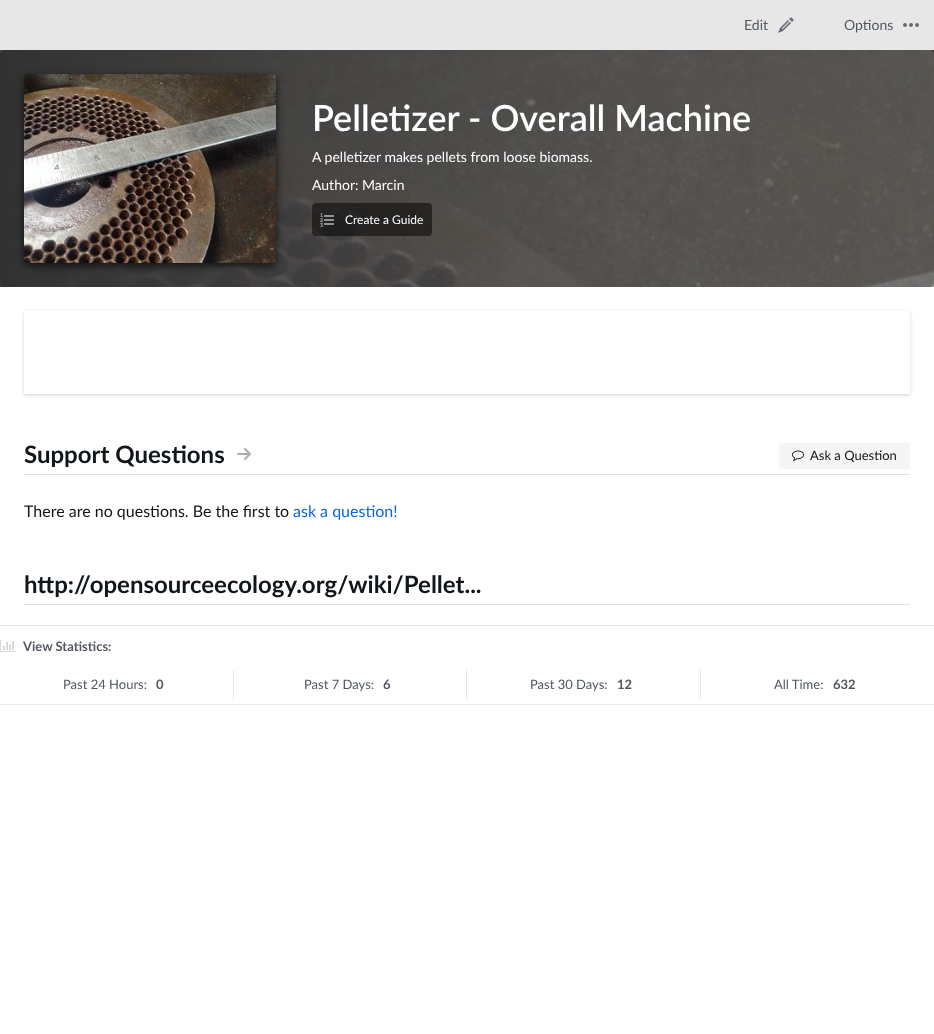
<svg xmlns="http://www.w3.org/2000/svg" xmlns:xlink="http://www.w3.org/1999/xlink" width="934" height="1034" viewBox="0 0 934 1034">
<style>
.cls-1{font:14px Lato;fill:#515861}
.cls-2{font:600 36px Lato;fill:#ffffff}
.cls-3{font:14px Lato;fill:#ffffff}
.cls-4{font:12px Lato;fill:#ffffff}
.cls-5{font:bold 24px Lato;fill:#11161a}
.cls-6{font:13px Lato;fill:#11161a}
.cls-7{font:16px Lato;fill:#11161a}
.cls-8{font:16px Lato;fill:#0e66e1}
.cls-9{font:bold 13px Lato;fill:#515861}
.cls-10{font:13px Lato;fill:#515861}
</style>
<defs>
<clipPath id="clip1"><path d="M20 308H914V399H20ZM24 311H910V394H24Z" clip-rule="evenodd"/></clipPath>
<clipPath id="clip2"><path d="M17 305H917V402H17ZM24 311H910V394H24Z" clip-rule="evenodd"/></clipPath>
</defs>
<rect width="100%" height="100%" fill="#ffffff"/>
<rect fill="#e7e7e7" x="0" y="0" width="934" height="50"/>
<image xlink:href="image0.png" x="778" y="17" width="16" height="16"/>
<image xlink:href="image1.png" x="903" y="23" width="16" height="4"/>
<image xlink:href="image2.png" x="0" y="50" width="934" height="237"/>
<rect fill="#101214" filter="blur(4px)" x="24" y="77" width="252" height="189" rx="4"/>
<image xlink:href="image3.png" x="24" y="74" width="252" height="189"/>
<rect fill="#000000" fill-opacity="0.5" x="312" y="203" width="120" height="33" rx="4"/>
<image xlink:href="image4.png" x="320" y="213" width="14" height="14"/>
<g clip-path="url(#clip1)">
<rect fill="#10161a" fill-opacity="0.1" filter="blur(1px)" x="24" y="312" width="886" height="83"/>
</g>
<g clip-path="url(#clip2)">
<rect fill="#10161a" fill-opacity="0.1" filter="blur(2px)" x="24" y="312" width="886" height="83"/>
</g>
<rect fill="#e2e2e2" x="24" y="474" width="886" height="1"/>
<image xlink:href="image5.png" x="237" y="448" width="14" height="12"/>
<rect fill="#f5f5f5" x="779" y="443" width="131" height="26" rx="3"/>
<image xlink:href="image6.png" x="792" y="450" width="12" height="11"/>
<rect fill="#e2e2e2" x="24" y="604" width="886" height="1"/>
<rect fill="#e7e7e7" x="0" y="625" width="934" height="1"/>
<rect fill="#e7e7e7" x="0" y="704" width="934" height="1"/>
<image xlink:href="image7.png" x="0" y="640" width="16" height="12"/>
<rect fill="#e7e7e7" x="233" y="670" width="1" height="29"/>
<rect fill="#e7e7e7" x="466" y="670" width="1" height="29"/>
<rect fill="#e7e7e7" x="700" y="670" width="1" height="29"/>
<text class="cls-1" x="744" y="30">Edit</text>
<text class="cls-1" x="844" y="30">Options</text>
<text class="cls-2" x="312" y="131">Pelletizer - Overall Machine</text>
<text class="cls-3" x="312" y="162">A pelletizer makes pellets from loose biomass.</text>
<text class="cls-3" x="312" y="190">Author: Marcin</text>
<text class="cls-4" x="345" y="224">Create a Guide</text>
<text class="cls-5" x="24" y="463">Support Questions</text>
<text class="cls-6" x="810" y="460">Ask a Question</text>
<text class="cls-7" x="24" y="517">There are no questions. Be the first to</text>
<text class="cls-8" x="293" y="517">ask a question!</text>
<text class="cls-5" x="24" y="593">http://opensourceecology.org/wiki/Pellet...</text>
<text class="cls-9" x="23" y="651">View Statistics:</text>
<text class="cls-10" x="63" y="689">Past 24 Hours:</text>
<text class="cls-9" x="156" y="689">0</text>
<text class="cls-10" x="304" y="689">Past 7 Days:</text>
<text class="cls-9" x="383" y="689">6</text>
<text class="cls-10" x="530" y="689">Past 30 Days:</text>
<text class="cls-9" x="617" y="689">12</text>
<text class="cls-10" x="774" y="689">All Time:</text>
<text class="cls-9" x="833" y="689">632</text>
</svg>
